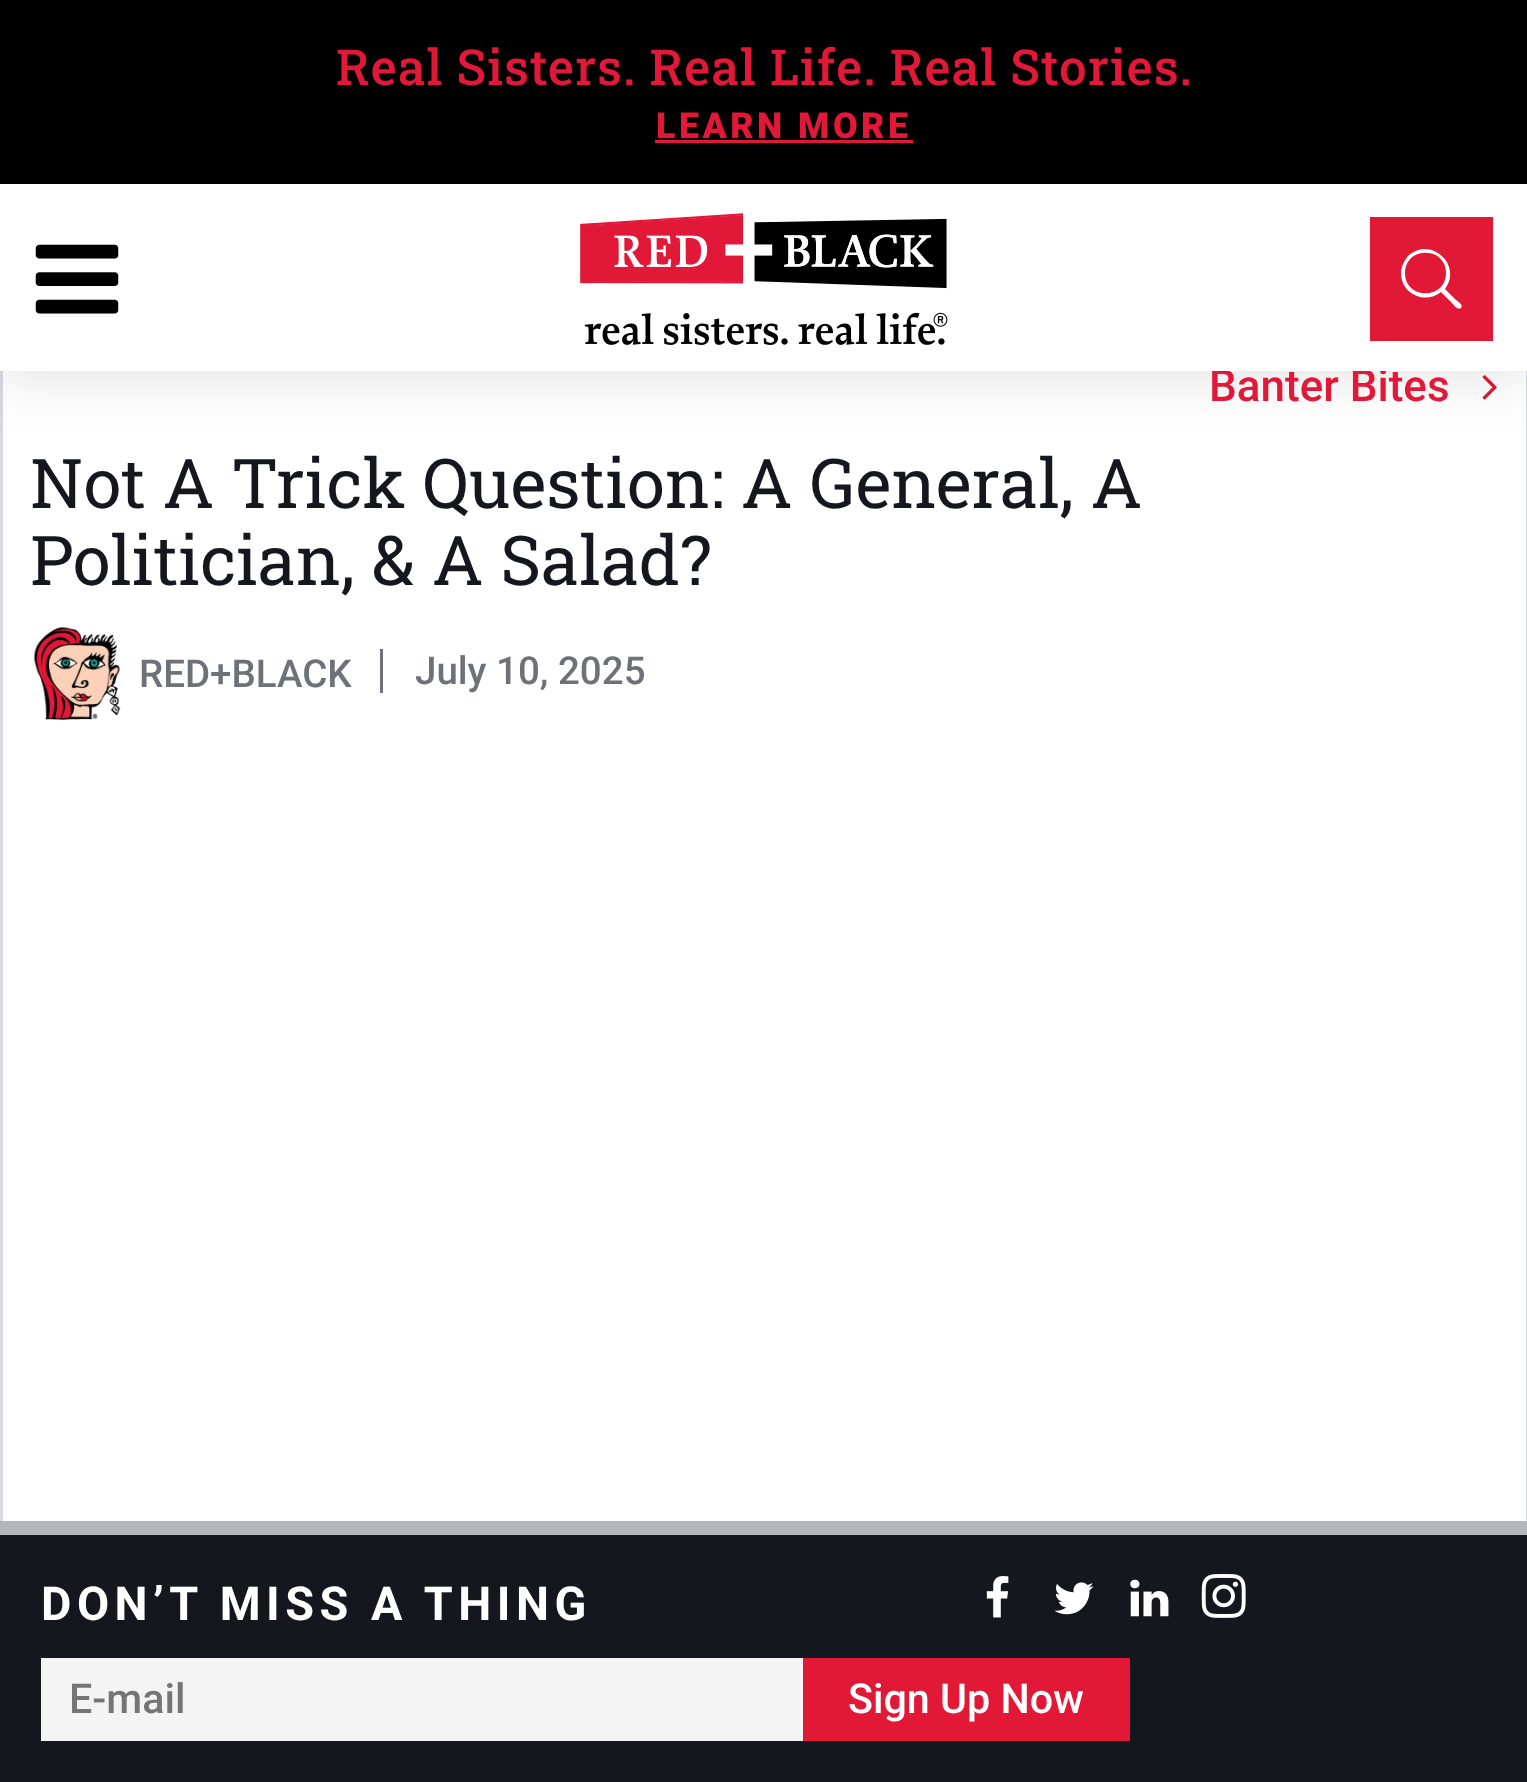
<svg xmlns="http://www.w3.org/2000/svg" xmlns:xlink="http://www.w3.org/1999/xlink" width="1527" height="1782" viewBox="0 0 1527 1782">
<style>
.cls-1{font:500 49.5px Roboto Slab;letter-spacing:1px;fill:#e11837}
.cls-2{font:900 35.75px Roboto;letter-spacing:3.5px;fill:#e11837}
.cls-3{font:500 44px Roboto;fill:#e11837}
.cls-4{font:68.75px Roboto Slab;fill:#14171d}
.cls-5{font:500 38.5px Roboto;fill:#6d7278}
.cls-6{font:bold 46.75px Roboto;letter-spacing:5.5px;fill:#ffffff}
.cls-7{font:500 41.25px Roboto;fill:#757575}
.cls-8{font:500 41.25px Roboto;fill:#ffffff}
</style>
<rect width="100%" height="100%" fill="#ffffff"/>
<rect fill="none" stroke="#d4d9e2" stroke-width="3" x="1.5" y="328.5" width="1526" height="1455"/>
<image xlink:href="image2.png" x="1482" y="375" width="15" height="25"/>
<rect fill="#000000" fill-opacity="0.1" filter="blur(25px)" x="0" y="11" width="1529" height="371"/>
<rect fill="#000000" x="0" y="0" width="1527" height="184"/>
<rect fill="#e11836" x="655" y="140" width="258" height="3"/>
<image xlink:href="image3.png" x="33" y="627" width="88" height="93"/>
<rect fill="#6d7278" x="380" y="649" width="3" height="44"/>
<rect fill="#14171d" x="0" y="1535" width="1527" height="247"/>
<rect fill="#b4b7ba" x="0" y="1521" width="1527" height="14"/>
<rect fill="#f4f4f4" x="41" y="1658" width="762" height="83"/>
<rect fill="#e11836" x="803" y="1658" width="327" height="83"/>
<image xlink:href="image4.png" x="986" y="1576" width="23" height="42"/>
<image xlink:href="image5.png" x="1054" y="1582" width="40" height="33"/>
<image xlink:href="image6.png" x="1130" y="1579" width="39" height="38"/>
<image xlink:href="image7.png" x="1201" y="1574" width="45" height="44"/>
<text class="cls-1" x="336" y="85">Real Sisters. Real Life. Real Stories.</text>
<text class="cls-2" x="656" y="138">LEARN MORE</text>
<text class="cls-3" x="1209" y="401">Banter Bites</text>
<rect fill="#ffffff" x="0" y="184" width="1527" height="187"/>
<rect fill="#e11836" x="1370" y="217" width="123" height="124"/>
<path fill="#ffffff" d="M1405 273C1405 246 1446 246 1446 273C1446 300 1405 300 1405 273M1401 273C1401 294 1425 305 1441 292L1452 303C1453 304 1458 311 1461 308C1464 305 1457 301 1455 299L1445 289C1463 265 1430 235 1408 256C1404 261 1401 267 1401 273"/>
<image xlink:href="image1.png" x="580" y="213" width="368" height="132"/>
<image xlink:href="image0.png" x="35" y="244" width="84" height="70"/>
<text class="cls-4"><tspan x="30" y="508">Not A Trick Question: A General, A</tspan><tspan x="30" y="585">Politician, &amp; A Salad?</tspan></text>
<text class="cls-5" x="139" y="687">RED+BLACK</text>
<text class="cls-5" x="415" y="684">July 10, 2025</text>
<text class="cls-6" x="41" y="1620">DON’T MISS A THING</text>
<text class="cls-7" x="69" y="1713">E-mail</text>
<text class="cls-8" x="848" y="1713">Sign Up Now</text>
</svg>
